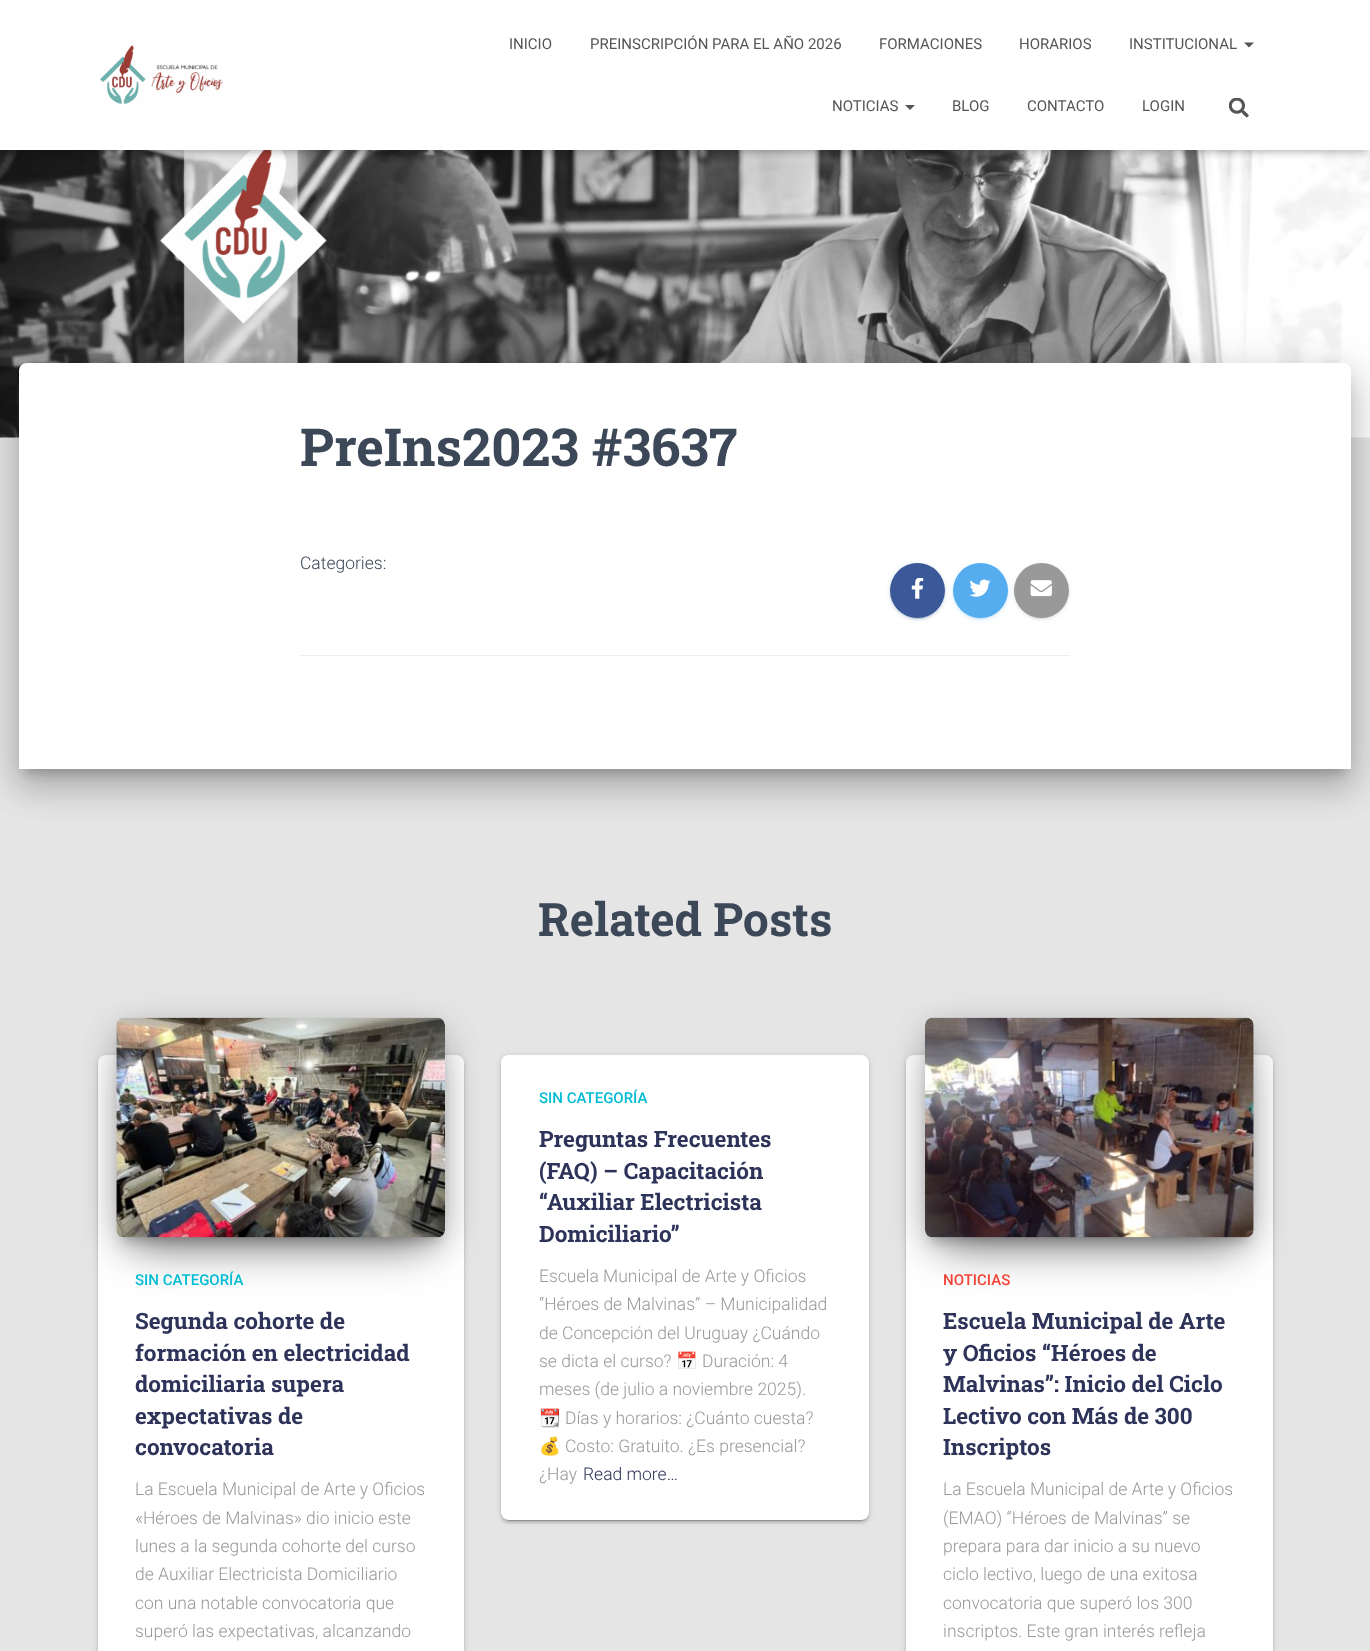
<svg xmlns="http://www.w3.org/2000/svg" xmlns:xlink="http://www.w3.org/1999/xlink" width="1370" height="1651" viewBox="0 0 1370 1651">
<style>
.cls-1{font:15px Roboto;fill:#555555}
.cls-2{font:bold 52.5px Roboto Slab;fill:#3c4858}
.cls-3{font:300 17.5px Roboto;fill:#3c4858}
.cls-4{font:bold 46.25px Roboto Slab;fill:#3c4858}
.cls-5{font:500 15px Roboto;fill:#00bcd4}
.cls-6{font:bold 22.5px Roboto Slab;fill:#2d3359}
.cls-7{font:300 17.5px Roboto;fill:#999999}
.cls-8{font:17.5px Noto Color Emoji;fill:#999999}
.cls-9{font:300 17.5px Roboto;fill:#2d3359}
.cls-10{font:500 15px Roboto;fill:#f44336}
</style>
<rect width="100%" height="100%" fill="#e5e5e5"/>
<image xlink:href="image2.png" x="0" y="150" width="1370" height="288"/>
<rect fill="#000000" fill-opacity="0.1" filter="blur(3px)" x="3" y="8" width="1365" height="145"/>
<rect fill="#000000" fill-opacity="0.12" filter="blur(6px)" x="0" y="1" width="1370" height="150"/>
<rect fill="#000000" fill-opacity="0.42" filter="blur(6px)" x="8" y="9" width="1355" height="135"/>
<rect fill="#ffffff" x="0" y="0" width="1370" height="150"/>
<image xlink:href="image0.png" x="100" y="45" width="123" height="59"/>
<path fill="#555555" d="M1244 42.5H1254L1249 47.5Z"/>
<path fill="#555555" d="M905 105H915L910 110Z"/>
<image xlink:href="image1.png" x="1229" y="98" width="20" height="20"/>
<rect fill="#000000" fill-opacity="0.2" filter="blur(6px)" x="25" y="379" width="1320" height="394" rx="1"/>
<rect fill="#000000" fill-opacity="0.12" filter="blur(19px)" x="13" y="364" width="1345" height="419" rx="14"/>
<rect fill="#000000" fill-opacity="0.14" filter="blur(15px)" x="16" y="380" width="1338" height="411" rx="10"/>
<path fill="#ffffff" d="M27 363H1343C1347.5 363 1351 366.5 1351 371V769H19V371C19 366.5 22.5 363 27 363Z"/>
<rect fill="#3b5998" fill-opacity="0.12" filter="blur(3px)" x="890" y="564" width="55" height="55" rx="27.5"/>
<rect fill="#3b5998" fill-opacity="0.2" filter="blur(0.5px)" x="893" y="569" width="50" height="50" rx="25"/>
<rect fill="#3b5998" fill-opacity="0.14" filter="blur(1px)" x="890" y="565" width="55" height="55" rx="27.5"/>
<circle fill="#3b5998" cx="917.5" cy="590.5" r="27.5"/>
<image xlink:href="image3.png" x="911" y="578" width="13" height="21"/>
<rect fill="#55acee" fill-opacity="0.12" filter="blur(3px)" x="953" y="564" width="55" height="55" rx="27.5"/>
<rect fill="#55acee" fill-opacity="0.2" filter="blur(0.5px)" x="955" y="569" width="50" height="50" rx="25"/>
<rect fill="#55acee" fill-opacity="0.14" filter="blur(1px)" x="953" y="565" width="55" height="55" rx="27.5"/>
<circle fill="#55acee" cx="980.5" cy="590.5" r="27.5"/>
<image xlink:href="image4.png" x="969" y="579" width="22" height="18"/>
<rect fill="#999999" fill-opacity="0.12" filter="blur(3px)" x="1014" y="564" width="55" height="55" rx="27.5"/>
<rect fill="#999999" fill-opacity="0.2" filter="blur(0.5px)" x="1016" y="569" width="50" height="50" rx="25"/>
<rect fill="#999999" fill-opacity="0.14" filter="blur(1px)" x="1014" y="565" width="55" height="55" rx="27.5"/>
<circle fill="#999999" cx="1041.5" cy="590.5" r="27.5"/>
<image xlink:href="image5.png" x="1030" y="580" width="22" height="17"/>
<rect fill="#eeeeee" x="300" y="655" width="770" height="1"/>
<rect fill="#000000" fill-opacity="0.12" filter="blur(3px)" x="98" y="1056" width="366" height="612" rx="8"/>
<rect fill="#000000" fill-opacity="0.14" filter="blur(1px)" x="98" y="1058" width="366" height="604" rx="8"/>
<rect fill="#ffffff" x="98" y="1055" width="366" height="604" rx="8"/>
<rect fill="#000000" fill-opacity="0.2" filter="blur(6px)" x="123" y="1034" width="316" height="207" rx="1"/>
<rect fill="#000000" fill-opacity="0.12" filter="blur(15.5px)" x="116" y="1023" width="329" height="220" rx="8"/>
<rect fill="#000000" fill-opacity="0.56" filter="blur(24px)" x="131" y="1053" width="299" height="190"/>
<image xlink:href="image6.png" x="116" y="1017" width="329" height="221"/>
<rect fill="#000000" fill-opacity="0.12" filter="blur(3px)" x="501" y="1056" width="368" height="465" rx="8"/>
<rect fill="#000000" fill-opacity="0.2" filter="blur(0.5px)" x="504" y="1061" width="362" height="460" rx="5"/>
<rect fill="#000000" fill-opacity="0.14" filter="blur(1px)" x="501" y="1058" width="368" height="465" rx="8"/>
<rect fill="#ffffff" x="501" y="1055" width="368" height="465" rx="8"/>
<rect fill="#000000" fill-opacity="0.12" filter="blur(3px)" x="906" y="1056" width="367" height="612" rx="8"/>
<rect fill="#000000" fill-opacity="0.14" filter="blur(1px)" x="906" y="1058" width="367" height="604" rx="8"/>
<rect fill="#ffffff" x="906" y="1055" width="367" height="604" rx="8"/>
<rect fill="#000000" fill-opacity="0.2" filter="blur(6px)" x="931" y="1034" width="317" height="207" rx="1"/>
<rect fill="#000000" fill-opacity="0.12" filter="blur(15.5px)" x="925" y="1023" width="329" height="220" rx="8"/>
<rect fill="#000000" fill-opacity="0.56" filter="blur(24px)" x="940" y="1053" width="299" height="190"/>
<image xlink:href="image7.png" x="925" y="1017" width="329" height="221"/>
<text class="cls-1" x="509" y="49">INICIO</text>
<text class="cls-1" x="590" y="49">PREINSCRIPCIÓN PARA EL AÑO 2026</text>
<text class="cls-1" x="879" y="49">FORMACIONES</text>
<text class="cls-1" x="1019" y="49">HORARIOS</text>
<text class="cls-1" x="1129" y="49">INSTITUCIONAL</text>
<text class="cls-1" x="832" y="111">NOTICIAS</text>
<text class="cls-1" x="952" y="111">BLOG</text>
<text class="cls-1" x="1027" y="111">CONTACTO</text>
<text class="cls-1" x="1142" y="111">LOGIN</text>
<text class="cls-2" x="300" y="466">PreIns2023 #3637</text>
<text class="cls-3" x="300" y="569">Categories:</text>
<text class="cls-4" x="538" y="936">Related Posts</text>
<text class="cls-5" x="135" y="1285">SIN CATEGORÍA</text>
<text class="cls-6"><tspan x="135" y="1329">Segunda cohorte de</tspan><tspan x="135" y="1361">formación en electricidad</tspan><tspan x="135" y="1392">domiciliaria supera</tspan><tspan x="135" y="1424">expectativas de</tspan><tspan x="135" y="1455">convocatoria</tspan></text>
<text class="cls-7"><tspan x="135" y="1495">La Escuela Municipal de Arte y Oficios</tspan><tspan x="135" y="1524">«Héroes de Malvinas» dio inicio este</tspan><tspan x="135" y="1552">lunes a la segunda cohorte del curso</tspan><tspan x="135" y="1580">de Auxiliar Electricista Domiciliario</tspan><tspan x="135" y="1609">con una notable convocatoria que</tspan><tspan x="135" y="1637">superó las expectativas, alcanzando</tspan></text>
<text class="cls-5" x="539" y="1103">SIN CATEGORÍA</text>
<text class="cls-6"><tspan x="539" y="1147">Preguntas Frecuentes</tspan><tspan x="539" y="1179">(FAQ) – Capacitación</tspan><tspan x="539" y="1210">“Auxiliar Electricista</tspan><tspan x="539" y="1242">Domiciliario”</tspan></text>
<text class="cls-7"><tspan x="539" y="1282">Escuela Municipal de Arte y Oficios</tspan><tspan x="539" y="1310">“Héroes de Malvinas” – Municipalidad</tspan><tspan x="539" y="1339">de Concepción del Uruguay ¿Cuándo</tspan><tspan x="539" y="1367">se dicta el curso?</tspan></text>
<text class="cls-8" x="676" y="1367">📅</text>
<text class="cls-7" x="702" y="1367">Duración: 4</text>
<text class="cls-7" x="539" y="1395">meses (de julio a noviembre 2025).</text>
<text class="cls-8" x="539" y="1424">📆</text>
<text class="cls-7" x="565" y="1424">Días y horarios: ¿Cuánto cuesta?</text>
<text class="cls-8" x="539" y="1452">💰</text>
<text class="cls-7" x="565" y="1452">Costo: Gratuito. ¿Es presencial?</text>
<text class="cls-7" x="539" y="1480">¿Hay</text>
<text class="cls-9" x="583" y="1480">Read more…</text>
<text class="cls-10" x="943" y="1285">NOTICIAS</text>
<text class="cls-6"><tspan x="943" y="1329">Escuela Municipal de Arte</tspan><tspan x="943" y="1361">y Oficios “Héroes de</tspan><tspan x="943" y="1392">Malvinas”: Inicio del Ciclo</tspan><tspan x="943" y="1424">Lectivo con Más de 300</tspan><tspan x="943" y="1455">Inscriptos</tspan></text>
<text class="cls-7"><tspan x="943" y="1495">La Escuela Municipal de Arte y Oficios</tspan><tspan x="943" y="1524">(EMAO) “Héroes de Malvinas” se</tspan><tspan x="943" y="1552">prepara para dar inicio a su nuevo</tspan><tspan x="943" y="1580">ciclo lectivo, luego de una exitosa</tspan><tspan x="943" y="1609">convocatoria que superó los 300</tspan><tspan x="943" y="1637">inscriptos. Este gran interés refleja</tspan></text>
</svg>
